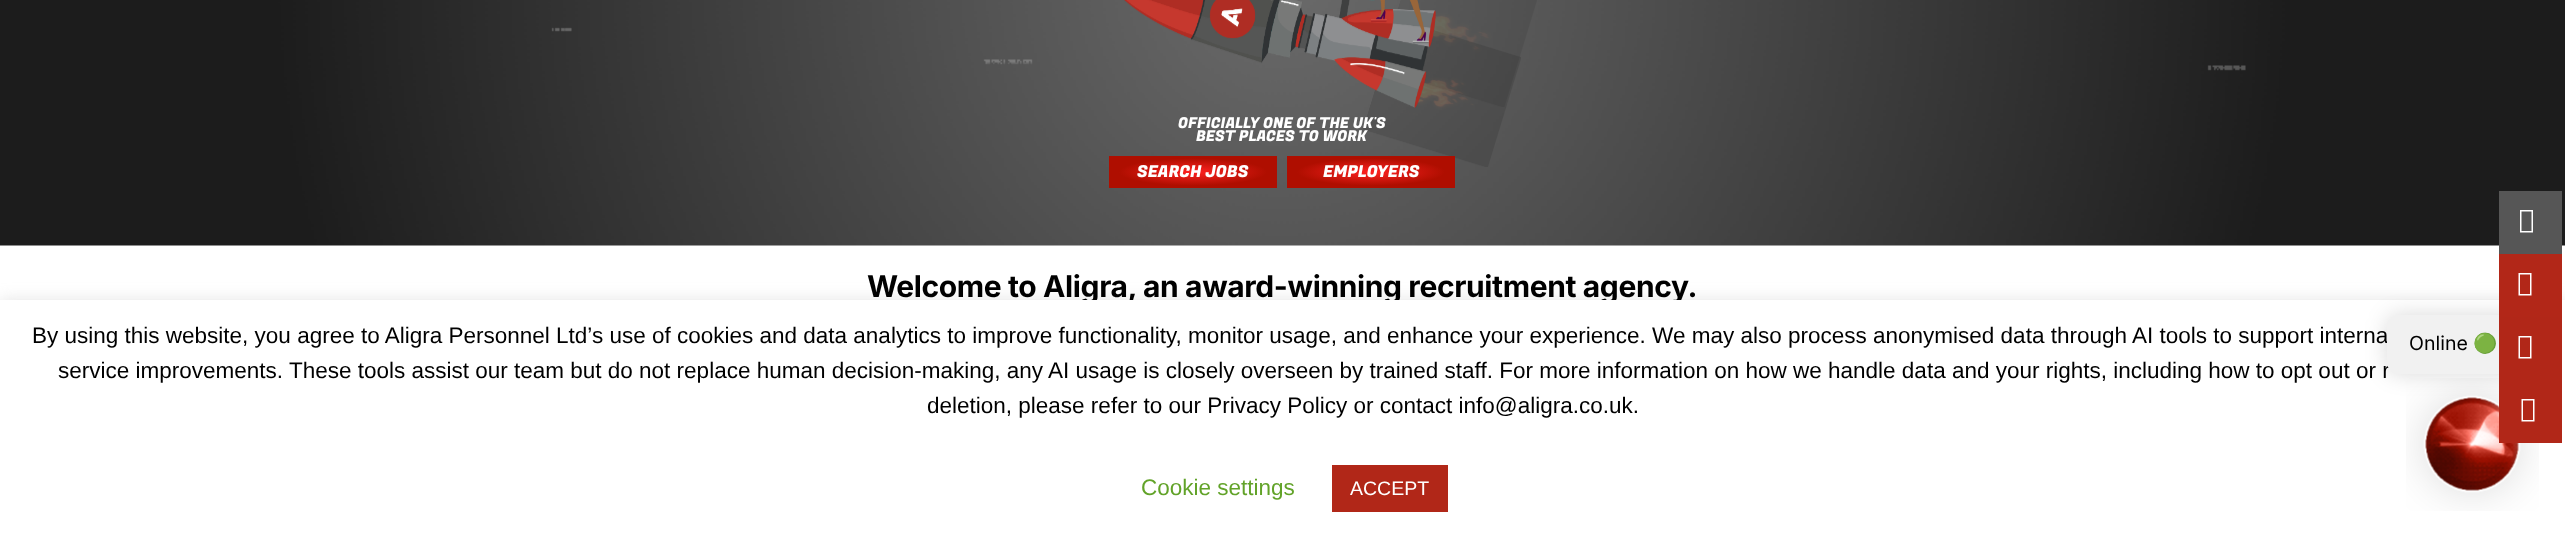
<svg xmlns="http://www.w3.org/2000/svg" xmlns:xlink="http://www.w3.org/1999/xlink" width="2565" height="536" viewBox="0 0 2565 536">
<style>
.cls-1{font:15px Fugaz One;fill:#ffffff}
.cls-2{font:16.5px Fugaz One;fill:#ffffff}
.cls-3{font:bold 30px Inter;letter-spacing:-0.38px;fill:#000000}
.cls-4{font:22.5px Liberation Sans;fill:#000000}
.cls-5{font:22.5px Liberation Sans;fill:#62a329}
.cls-6{font:19.5px Liberation Sans;fill:#ffffff}
.cls-7{font:19.5px Noto Color Emoji;fill:#000000}
.cls-8{font:19.5px Inter;fill:#000000}
</style>
<defs>
<radialGradient id="g1" gradientUnits="userSpaceOnUse" cx="0" cy="0" r="1" gradientTransform="matrix(119 0 0 22 1193 172)"><stop offset="0" stop-color="#ff2121"/><stop offset="0.62" stop-color="#af0e00"/><stop offset="1" stop-color="#af0e00"/></radialGradient>
<radialGradient id="g2" gradientUnits="userSpaceOnUse" cx="0" cy="0" r="1" gradientTransform="matrix(119 0 0 22 1371 172)"><stop offset="0" stop-color="#ff2121"/><stop offset="0.62" stop-color="#af0e00"/><stop offset="1" stop-color="#af0e00"/></radialGradient>
<clipPath id="clip1"><rect x="1040" y="117" width="484" height="27"/></clipPath>
</defs>
<rect width="100%" height="100%" fill="#ffffff"/>
<image xlink:href="image0.png" x="0" y="0" width="2565" height="246"/>
<image xlink:href="image3.png" x="551" y="27" width="1695" height="44"/>
<image xlink:href="image4.png" x="1363" y="30" width="158" height="137"/>
<image xlink:href="image2.png" x="1397" y="0" width="140" height="107"/>
<image xlink:href="image1.png" x="1124" y="0" width="312" height="108"/>
<rect fill="url(#g1)" x="1109" y="156" width="168" height="32"/>
<rect fill="url(#g2)" x="1287" y="156" width="168" height="32"/>
<rect fill="#565656" x="2499" y="191" width="63" height="63"/>
<path fill="#ffffff" d="M2520 232.5V210H2533V232.5ZM2521.5 231H2531.5V211.5H2521.5Z"/>
<rect fill="#acabab" fill-opacity="0.3" filter="blur(7.5px)" x="0" y="299" width="2565" height="237"/>
<g clip-path="url(#clip1)">
<text class="cls-1" x="1178" y="128">OFFICIALLY ONE OF THE UK'S</text>
</g>
<text class="cls-1" x="1196" y="141">BEST PLACES TO WORK</text>
<text class="cls-2" x="1137" y="177">SEARCH JOBS</text>
<text class="cls-2" x="1323" y="177">EMPLOYERS</text>
<text class="cls-3" x="867" y="297">Welcome to Aligra, an award-winning recruitment agency.</text>
<rect fill="#ffffff" x="0" y="300" width="2565" height="236"/>
<text class="cls-4" x="32" y="343">By using this website, you agree to Aligra Personnel Ltd’s use of cookies and data analytics to improve functionality, monitor usage, and enhance your experience. We may also process anonymised data through AI tools to support interna</text>
<text class="cls-4" x="58" y="378">service improvements. These tools assist our team but do not replace human decision-making, any AI usage is closely overseen by trained staff. For more information on how we handle data and your rights, including how to opt out or r</text>
<text class="cls-4" x="927" y="413">deletion, please refer to our Privacy Policy or contact info@aligra.co.uk.</text>
<text class="cls-5" x="1141" y="495">Cookie settings</text>
<rect fill="#b12718" x="1332" y="465" width="116" height="47"/>
<text class="cls-6" x="1350" y="495">ACCEPT</text>
<image xlink:href="image5.png" x="2406" y="378" width="133" height="133"/>
<rect fill="#000000" fill-opacity="0.15" filter="blur(11px)" x="2387" y="315" width="133" height="59" rx="12"/>
<rect fill="#f1f1f1" x="2387" y="315" width="133" height="59" rx="12"/>
<rect fill="#b12718" x="2499" y="317" width="63" height="126"/>
<path fill="#ffffff" d="M2521.5 421.5V399H2534.5V421.5ZM2523 420H2533V400.5H2523Z"/>
<path fill="#ffffff" d="M2518.5 358.5V336H2531.5V358.5ZM2520 357H2530V337.5H2520Z"/>
<rect fill="#b22718" x="2499" y="254" width="63" height="63"/>
<path fill="#ffffff" d="M2518.5 295.5V273H2531.5V295.5ZM2520 294H2530V274.5H2520Z"/>
<text class="cls-7" x="2473" y="350">🟢</text>
<text class="cls-8" x="2409" y="350">Online</text>
</svg>
